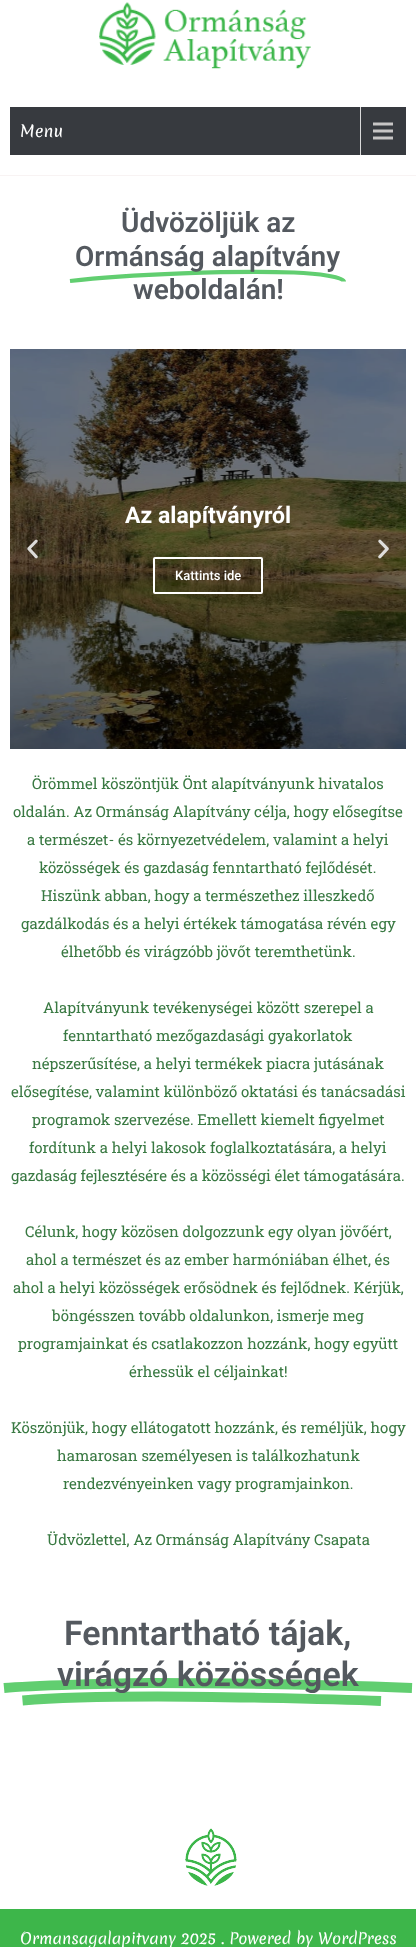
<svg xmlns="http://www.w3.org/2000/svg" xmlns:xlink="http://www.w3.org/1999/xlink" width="416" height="1947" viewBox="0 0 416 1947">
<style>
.cls-1{font:16px Merienda;fill:#ffffff}
.cls-2{font:600 28px Roboto;fill:#54595f}
.cls-3{font:bold 23px Roboto;fill:#ffffff}
.cls-4{font:500 13px Roboto;fill:#ffffff}
.cls-5{font:15px Roboto Slab;fill:#397942}
.cls-6{font:600 34px Roboto;fill:#54595f}
.cls-7{font:15px Merienda;fill:#ffffff}
</style>
<rect width="100%" height="100%" fill="#ffffff"/>
<rect fill="#f8f3f3" x="0" y="175" width="416" height="1"/>
<image xlink:href="image0.png" x="99" y="2" width="212" height="67"/>
<rect fill="#373a3f" x="10" y="107" width="396" height="48"/>
<image xlink:href="image1.png" x="360" y="107" width="33" height="48"/>
<path fill="none" stroke="#61ce70" stroke-width="4.1" d="M70 281C127.5 274 236.5 270.5 294 272.5C318 273.5 344 277 344 281.5"/>
<image xlink:href="image3.png" x="10" y="349" width="396" height="400"/>
<image xlink:href="image2.png" x="27" y="539" width="11" height="20"/>
<rect fill="none" stroke="#ffffff" stroke-width="2" x="154" y="558" width="108" height="35" rx="1"/>
<image xlink:href="image4.png" x="378" y="539" width="11" height="20"/>
<circle fill="#000000" cx="190" cy="733" r="3"/>
<circle fill="#000000" fill-opacity="0.2" cx="208" cy="733" r="3"/>
<circle fill="#000000" fill-opacity="0.2" cx="226" cy="733" r="3"/>
<path fill="none" stroke="#61ce70" stroke-width="9.8" d="M4 1688C29.5 1685.5 119 1683 151.5 1683C249 1683 361.5 1686 412 1688"/>
<path fill="none" stroke="#61ce70" stroke-width="9.8" d="M22.5 1700.5C68 1696.5 127 1696.5 157.5 1696.5C196 1696.5 327 1698.5 381 1701"/>
<image xlink:href="image5.png" x="185" y="1828" width="52" height="58"/>
<rect fill="#3db64a" x="0" y="1909" width="416" height="38"/>
<text class="cls-1" x="20" y="137">Menu</text>
<text class="cls-2" x="121" y="232">Üdvözöljük az</text>
<text class="cls-2" x="75" y="266">Ormánság alapítvány</text>
<text class="cls-2" x="133" y="299">weboldalán!</text>
<text class="cls-3" x="125" y="523">Az alapítványról</text>
<text class="cls-4" x="175" y="580">Kattints ide</text>
<text class="cls-5" x="32" y="789">Örömmel köszöntjük Önt alapítványunk hivatalos</text>
<text class="cls-5" x="13" y="817">oldalán. Az Ormánság Alapítvány célja, hogy elősegítse</text>
<text class="cls-5" x="27" y="845">a természet- és környezetvédelem, valamint a helyi</text>
<text class="cls-5" x="39" y="873">közösségek és gazdaság fenntartható fejlődését.</text>
<text class="cls-5" x="41" y="901">Hiszünk abban, hogy a természethez illeszkedő</text>
<text class="cls-5" x="21" y="929">gazdálkodás és a helyi értékek támogatása révén egy</text>
<text class="cls-5" x="61" y="957">élhetőbb és virágzóbb jövőt teremthetünk.</text>
<text class="cls-5" x="43" y="1013">Alapítványunk tevékenységei között szerepel a</text>
<text class="cls-5" x="63" y="1041">fenntartható mezőgazdasági gyakorlatok</text>
<text class="cls-5" x="32" y="1069">népszerűsítése, a helyi termékek piacra jutásának</text>
<text class="cls-5" x="11" y="1097">elősegítése, valamint különböző oktatási és tanácsadási</text>
<text class="cls-5" x="32" y="1125">programok szervezése. Emellett kiemelt figyelmet</text>
<text class="cls-5" x="29" y="1153">fordítunk a helyi lakosok foglalkoztatására, a helyi</text>
<text class="cls-5" x="11" y="1181">gazdaság fejlesztésére és a közösségi élet támogatására.</text>
<text class="cls-5" x="25" y="1237">Célunk, hogy közösen dolgozzunk egy olyan jövőért,</text>
<text class="cls-5" x="26" y="1265">ahol a természet és az ember harmóniában élhet, és</text>
<text class="cls-5" x="13" y="1293">ahol a helyi közösségek erősödnek és fejlődnek. Kérjük,</text>
<text class="cls-5" x="52" y="1321">böngésszen tovább oldalunkon, ismerje meg</text>
<text class="cls-5" x="18" y="1349">programjainkat és csatlakozzon hozzánk, hogy együtt</text>
<text class="cls-5" x="129" y="1377">érhessük el céljainkat!</text>
<text class="cls-5" x="11" y="1433">Köszönjük, hogy ellátogatott hozzánk, és reméljük, hogy</text>
<text class="cls-5" x="57" y="1461">hamarosan személyesen is találkozhatunk</text>
<text class="cls-5" x="63" y="1489">rendezvényeinken vagy programjainkon.</text>
<text class="cls-5" x="47" y="1545">Üdvözlettel, Az Ormánság Alapítvány Csapata</text>
<text class="cls-6" x="64" y="1645">Fenntartható tájak,</text>
<text class="cls-6" x="57" y="1686">virágzó közösségek</text>
<text class="cls-7" x="20" y="1944">Ormansagalapitvany 2025 . Powered by WordPress</text>
</svg>
